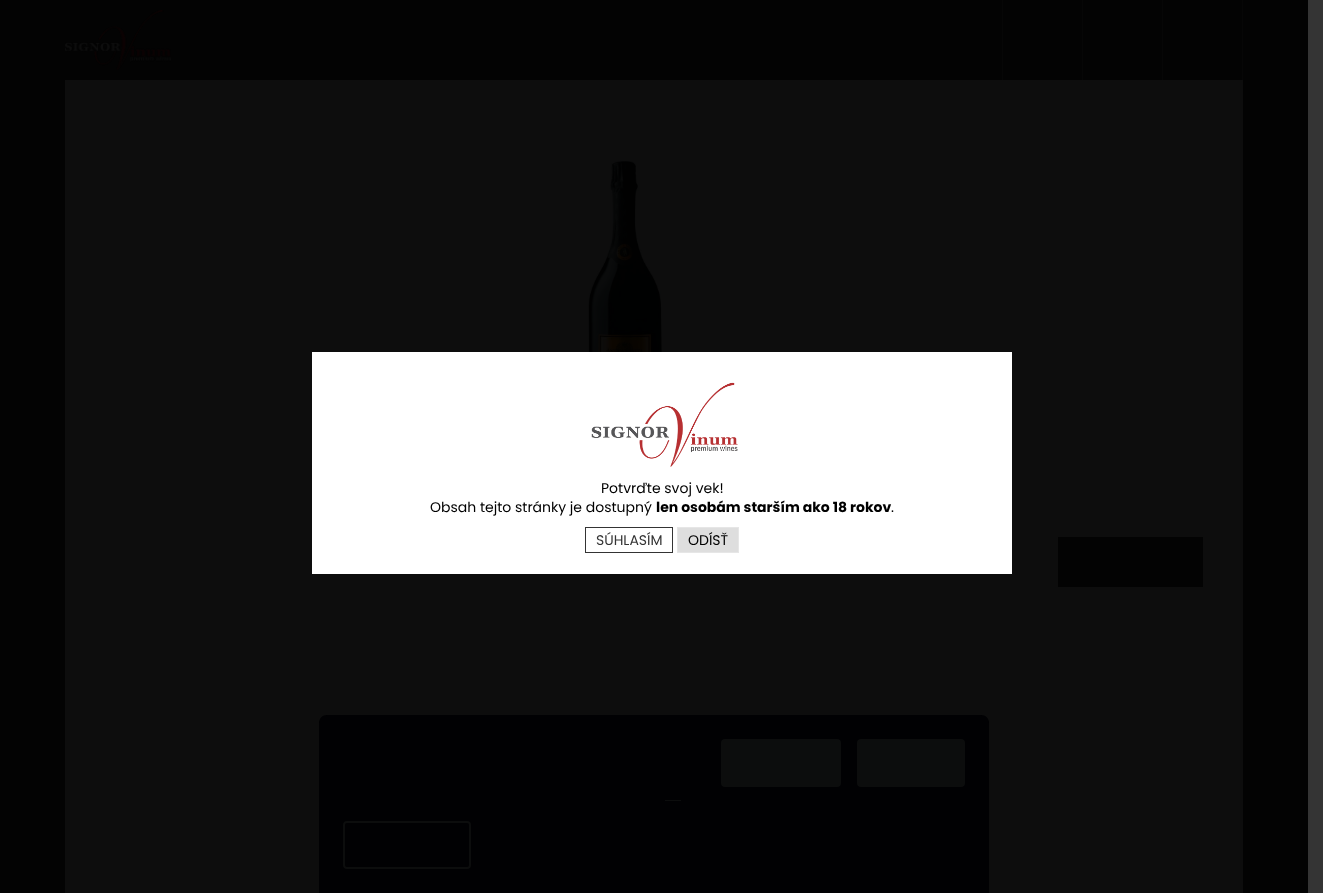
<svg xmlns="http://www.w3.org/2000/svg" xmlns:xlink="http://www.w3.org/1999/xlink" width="1323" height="893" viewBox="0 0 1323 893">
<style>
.cls-1{font:14px Poppins;fill:#000000}
.cls-2{font:bold 14px Poppins;fill:#000000}
.cls-3{font:14px Poppins;fill:#343434}
</style>
<rect width="100%" height="100%" fill="#343434"/>
<rect fill="#030303" x="0" y="0" width="1308" height="893"/>
<image xlink:href="image0.png" x="65" y="10" width="106" height="60"/>
<rect fill="#060606" x="1242" y="0" width="1" height="80"/>
<rect fill="#060606" x="1002" y="0" width="1" height="80"/>
<rect fill="#060606" x="1082" y="0" width="1" height="80"/>
<rect fill="#060606" x="1162" y="0" width="1" height="80"/>
<rect fill="#0d0d0d" x="65" y="80" width="1178" height="813"/>
<image xlink:href="image1.png" x="588" y="160" width="76" height="192"/>
<rect fill="#030303" x="1058" y="537" width="145" height="50"/>
<rect fill="#ffffff" x="312" y="352" width="700" height="222"/>
<image xlink:href="image2.png" x="591" y="382" width="147" height="85"/>
<rect fill="none" stroke="#343434" x="585.5" y="527.5" width="87" height="25"/>
<rect fill="#dedede" stroke="#e6e6e6" x="677.5" y="527.5" width="61" height="25"/>
<path fill="#010103" d="M327 715H981C985.5 715 989 718.5 989 723V893H319V723C319 718.5 322.5 715 327 715Z"/>
<rect fill="#0c0d0d" x="721" y="739" width="120" height="48" rx="4"/>
<rect fill="#0c0d0d" x="857" y="739" width="108" height="48" rx="4"/>
<rect fill="#0c0d0d" x="665" y="800" width="16" height="1"/>
<rect fill="none" stroke="#0c0d0d" stroke-width="2" x="344" y="822" width="126" height="46" rx="3"/>
<text class="cls-1" x="601" y="493">Potvrďte svoj vek!</text>
<text class="cls-1" x="430" y="512">Obsah tejto stránky je dostupný</text>
<text class="cls-2" x="656" y="512">len osobám starším ako 18 rokov</text>
<text class="cls-1" x="891" y="512">.</text>
<text class="cls-3" x="596" y="545">SÚHLASÍM</text>
<text class="cls-1" x="688" y="545">ODÍSŤ</text>
</svg>
